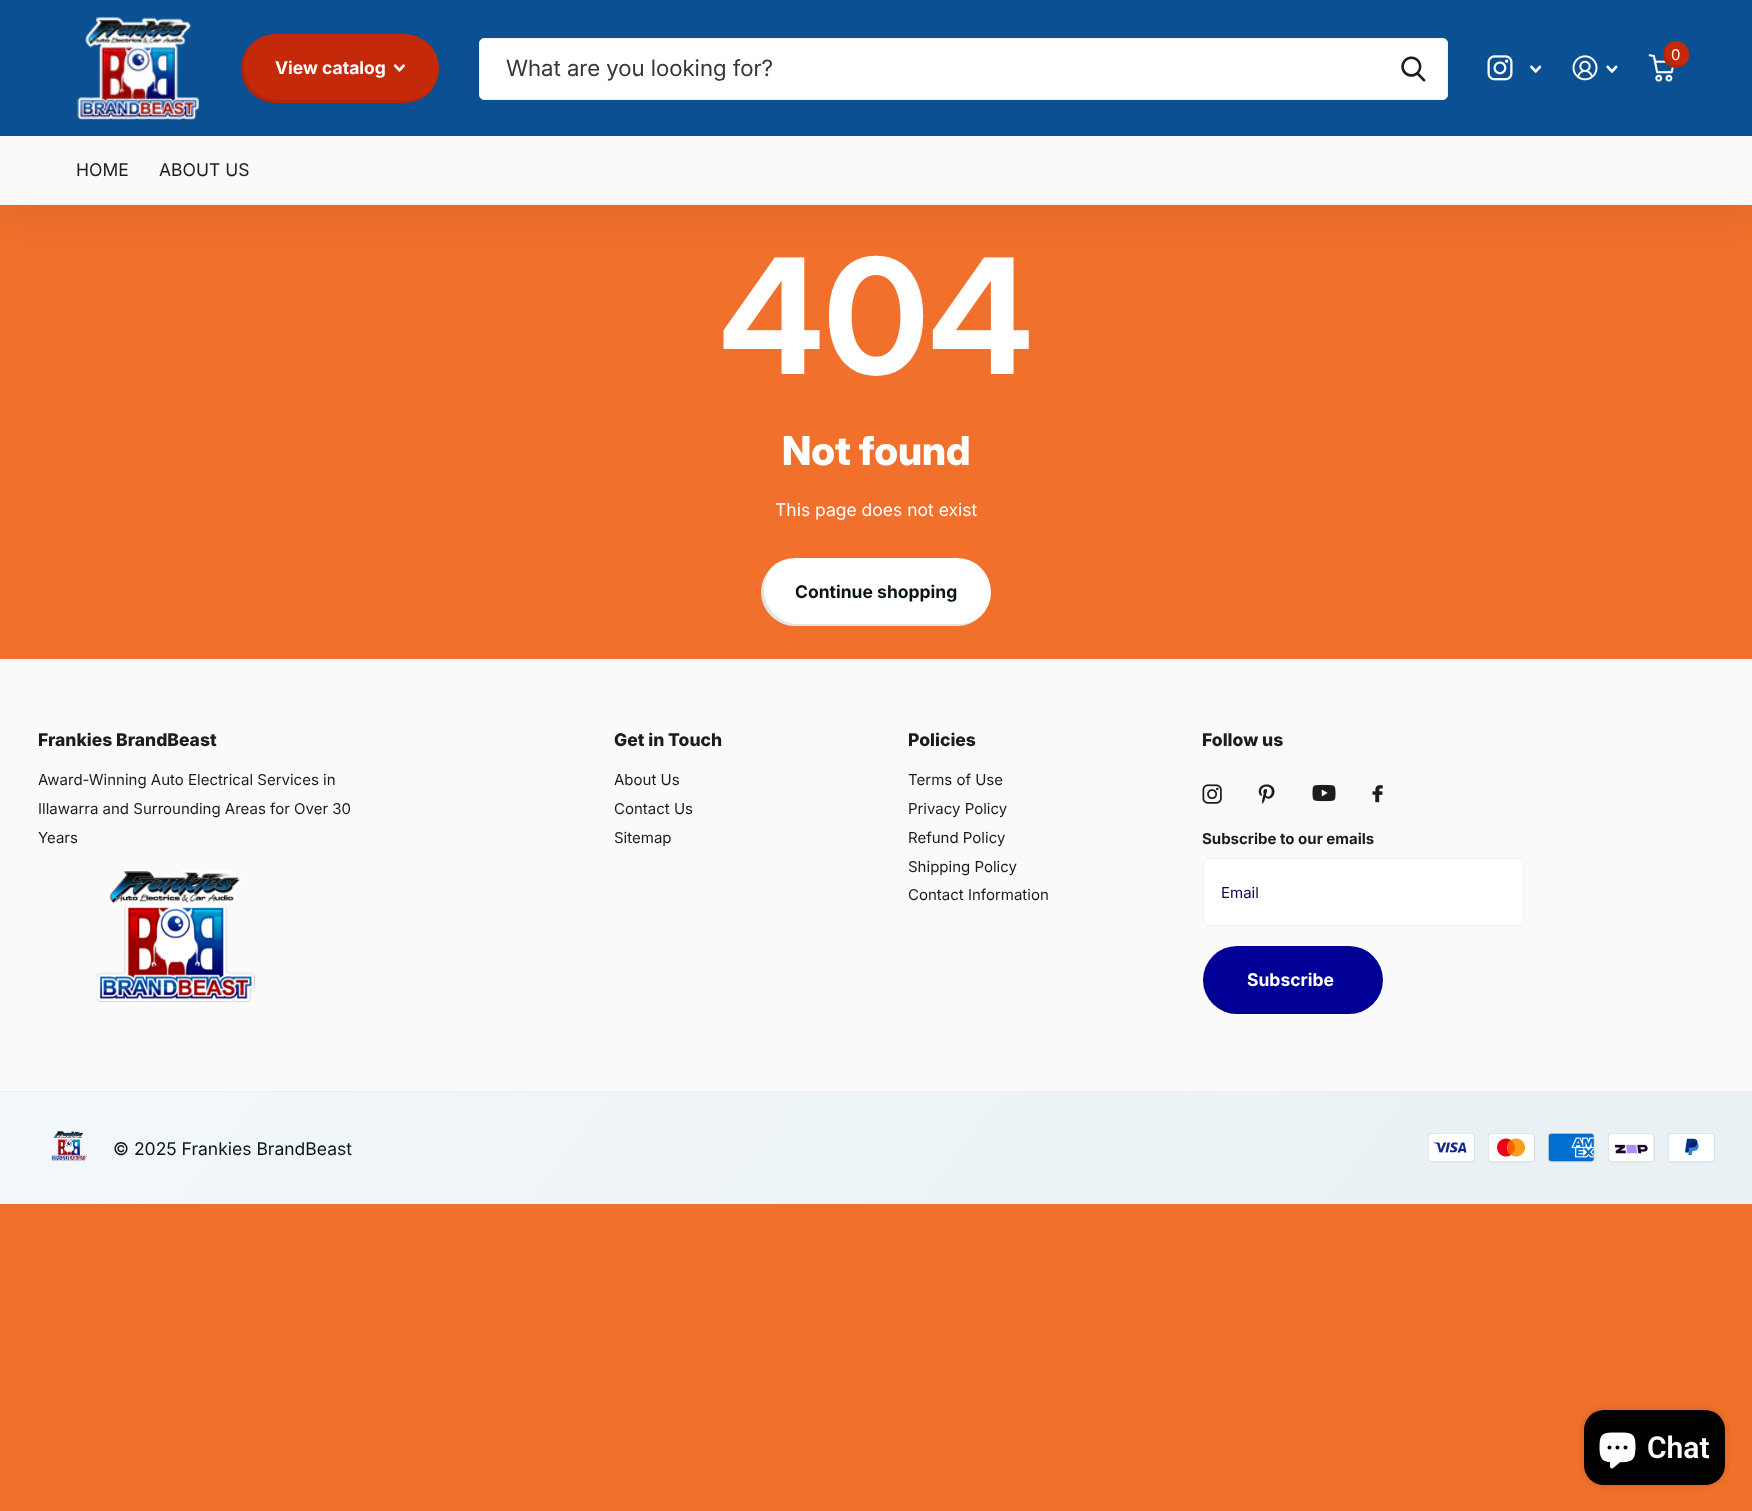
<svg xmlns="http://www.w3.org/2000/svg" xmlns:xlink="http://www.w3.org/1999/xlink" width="1752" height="1511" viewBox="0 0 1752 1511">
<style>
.cls-1{font:15px Inter;fill:#ffffff}
.cls-2{font:bold 17.5px 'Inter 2';fill:#ffffff}
.cls-3{font:22.5px 'Inter 2';fill:#373535}
.cls-4{font:17.5px Inter;fill:#1d1c1c}
.cls-5{font:bold 160px Inter;fill:#ffffff}
.cls-6{font:800 40px Inter;fill:#ffffff}
.cls-7{font:17.5px Inter;fill:#ffffff}
.cls-8{font:bold 17.5px 'Inter 2';fill:#0b1613}
.cls-9{font:800 17.5px 'Inter 2';fill:#1d1c1c}
.cls-10{font:15px Inter;fill:#1d1c1c}
.cls-11{font:bold 15px 'Inter 2';fill:#1d1c1c}
.cls-12{font:15px Inter;fill:#070754}
.cls-13{font:17.5px Inter;fill:#0b1613}
.cls-14{font:600 30px Roboto;fill:#ffffff}
</style>
<defs>
<linearGradient id="g1" gradientUnits="userSpaceOnUse" x1="235" y1="554" x2="1518" y2="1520"><stop offset="0.11" stop-color="#f2f7f9"/><stop offset="0.81" stop-color="#e9f1f4"/></linearGradient>
<linearGradient id="g2" gradientUnits="userSpaceOnUse" x1="235" y1="665" x2="1518" y2="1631"><stop offset="0.11" stop-color="#f2f7f9"/><stop offset="0.81" stop-color="#e9f1f4"/></linearGradient>
</defs>
<rect width="100%" height="100%" fill="#f0702c"/>
<rect fill="#000000" fill-opacity="0.07" filter="blur(20px)" x="0" y="11" width="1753" height="205"/>
<rect fill="#0b5093" x="0" y="0" width="1752" height="136"/>
<rect fill="#f2f2f1" x="0" y="204" width="1752" height="1"/>
<image xlink:href="image0.png" x="77" y="16" width="123" height="105"/>
<image xlink:href="image1.png" x="1487" y="55" width="26" height="26"/>
<image xlink:href="image2.png" x="1530" y="65" width="12" height="8"/>
<image xlink:href="image3.png" x="1572" y="55" width="26" height="26"/>
<image xlink:href="image4.png" x="1606" y="65" width="12" height="8"/>
<image xlink:href="image5.png" x="1648" y="54" width="26" height="28"/>
<rect fill="#c42a0a" x="1663" y="41" width="26" height="27" rx="13"/>
<path fill="#000000" fill-opacity="0.1" d="M1687.5 61C1685.5 63.5 1682.5 65 1678 65C1666 65 1662.5 51.5 1667.5 44C1662 49 1661.5 58.5 1667 64C1673 70.5 1683.5 68.5 1687.5 61Z"/>
<rect fill="#c42a0a" x="241" y="34" width="198" height="69" rx="34.5"/>
<path fill="#000000" fill-opacity="0.1" d="M253 42C246 49 241 58 241 68C241 88 256 103 276 103H404C416 103 426 97 432 89C426 96 417 100 407 100H278C259 100 244 85 244 66C244 57 247 49 253 42Z"/>
<image xlink:href="image6.png" x="393" y="64" width="12" height="8"/>
<rect fill="#ffffff" stroke="#f2f2f1" x="479.5" y="38.5" width="968" height="61" rx="4.5"/>
<image xlink:href="image7.png" x="1401" y="56" width="25" height="26"/>
<rect fill="#fafafa" x="0" y="136" width="1752" height="68"/>
<rect fill="#ffffff" x="761" y="558" width="230" height="68" rx="34"/>
<path fill="#000000" fill-opacity="0.1" d="M772 567C765 573 761 582 761 592C761 611 776 626 795 626H957C967 626 975 622 981 616C975 621 967 624 959 624H798C779 624 764 608 764 589C764 581 767 573 772 567Z"/>
<rect fill="#fafafa" x="0" y="659" width="1752" height="432"/>
<image xlink:href="image8.png" x="96" y="869" width="159" height="134"/>
<image xlink:href="image9.png" x="1202" y="784" width="20" height="20"/>
<image xlink:href="image10.png" x="1258" y="784" width="17" height="20"/>
<image xlink:href="image11.png" x="1312" y="784" width="24" height="18"/>
<image xlink:href="image12.png" x="1372" y="785" width="11" height="18"/>
<rect fill="#ffffff" stroke="#f2f2f1" x="1203.5" y="858.5" width="320" height="67" rx="4.5"/>
<rect fill="#000096" x="1203" y="946" width="180" height="68" rx="34"/>
<path fill="#000000" fill-opacity="0.1" d="M1213 956C1207 962 1203 971 1203 980C1203 999 1218 1014 1237 1014H1349C1361 1014 1371 1008 1377 999C1371 1006 1362 1011 1351 1011H1239C1220 1011 1205 996 1205 978C1205 970 1208 962 1213 956Z"/>
<rect fill="url(#g1)" x="0" y="1092" width="1752" height="1"/>
<rect fill="url(#g2)" x="0" y="1093" width="1752" height="111"/>
<rect fill="#ecedec" x="0" y="1091" width="1752" height="1"/>
<image xlink:href="image13.png" x="51" y="1131" width="36" height="31"/>
<image xlink:href="image14.png" x="1428" y="1133" width="47" height="30"/>
<image xlink:href="image15.png" x="1488" y="1133" width="47" height="30"/>
<image xlink:href="image16.png" x="1548" y="1133" width="47" height="30"/>
<image xlink:href="image17.png" x="1608" y="1133" width="47" height="30"/>
<image xlink:href="image18.png" x="1668" y="1133" width="47" height="30"/>
<rect fill="#000000" fill-opacity="0.15" filter="blur(3px)" x="1584" y="1410" width="141" height="75" rx="20"/>
<rect fill="#000000" x="1584" y="1410" width="141" height="75" rx="20"/>
<image xlink:href="image19.png" x="1599" y="1432" width="37" height="37"/>
<text class="cls-1" x="1671" y="60">0</text>
<text class="cls-2" x="275" y="74">View catalog</text>
<text class="cls-3" x="506" y="76">What are you looking for?</text>
<text class="cls-4" x="76" y="176">HOME</text>
<text class="cls-4" x="159" y="176">ABOUT US</text>
<text class="cls-5" x="719" y="374">404</text>
<text class="cls-6" x="782" y="465">Not found</text>
<text class="cls-7" x="775" y="516">This page does not exist</text>
<text class="cls-8" x="795" y="598">Continue shopping</text>
<text class="cls-9" x="38" y="746">Frankies BrandBeast</text>
<text class="cls-10"><tspan x="38" y="785">Award-Winning Auto Electrical Services in</tspan><tspan x="38" y="814">Illawarra and Surrounding Areas for Over 30</tspan><tspan x="38" y="843">Years</tspan></text>
<text class="cls-9" x="614" y="746">Get in Touch</text>
<text class="cls-10"><tspan x="614" y="785">About Us</tspan><tspan x="614" y="814">Contact Us</tspan><tspan x="614" y="843">Sitemap</tspan></text>
<text class="cls-9" x="908" y="746">Policies</text>
<text class="cls-10"><tspan x="908" y="785">Terms of Use</tspan><tspan x="908" y="814">Privacy Policy</tspan><tspan x="908" y="843">Refund Policy</tspan><tspan x="908" y="872">Shipping Policy</tspan><tspan x="908" y="900">Contact Information</tspan></text>
<text class="cls-9" x="1202" y="746">Follow us</text>
<text class="cls-11" x="1202" y="844">Subscribe to our emails</text>
<text class="cls-12" x="1221" y="898">Email</text>
<text class="cls-2" x="1247" y="986">Subscribe</text>
<text class="cls-13" x="113" y="1155">© 2025 Frankies BrandBeast</text>
<text class="cls-14" x="1647" y="1458">Chat</text>
</svg>
